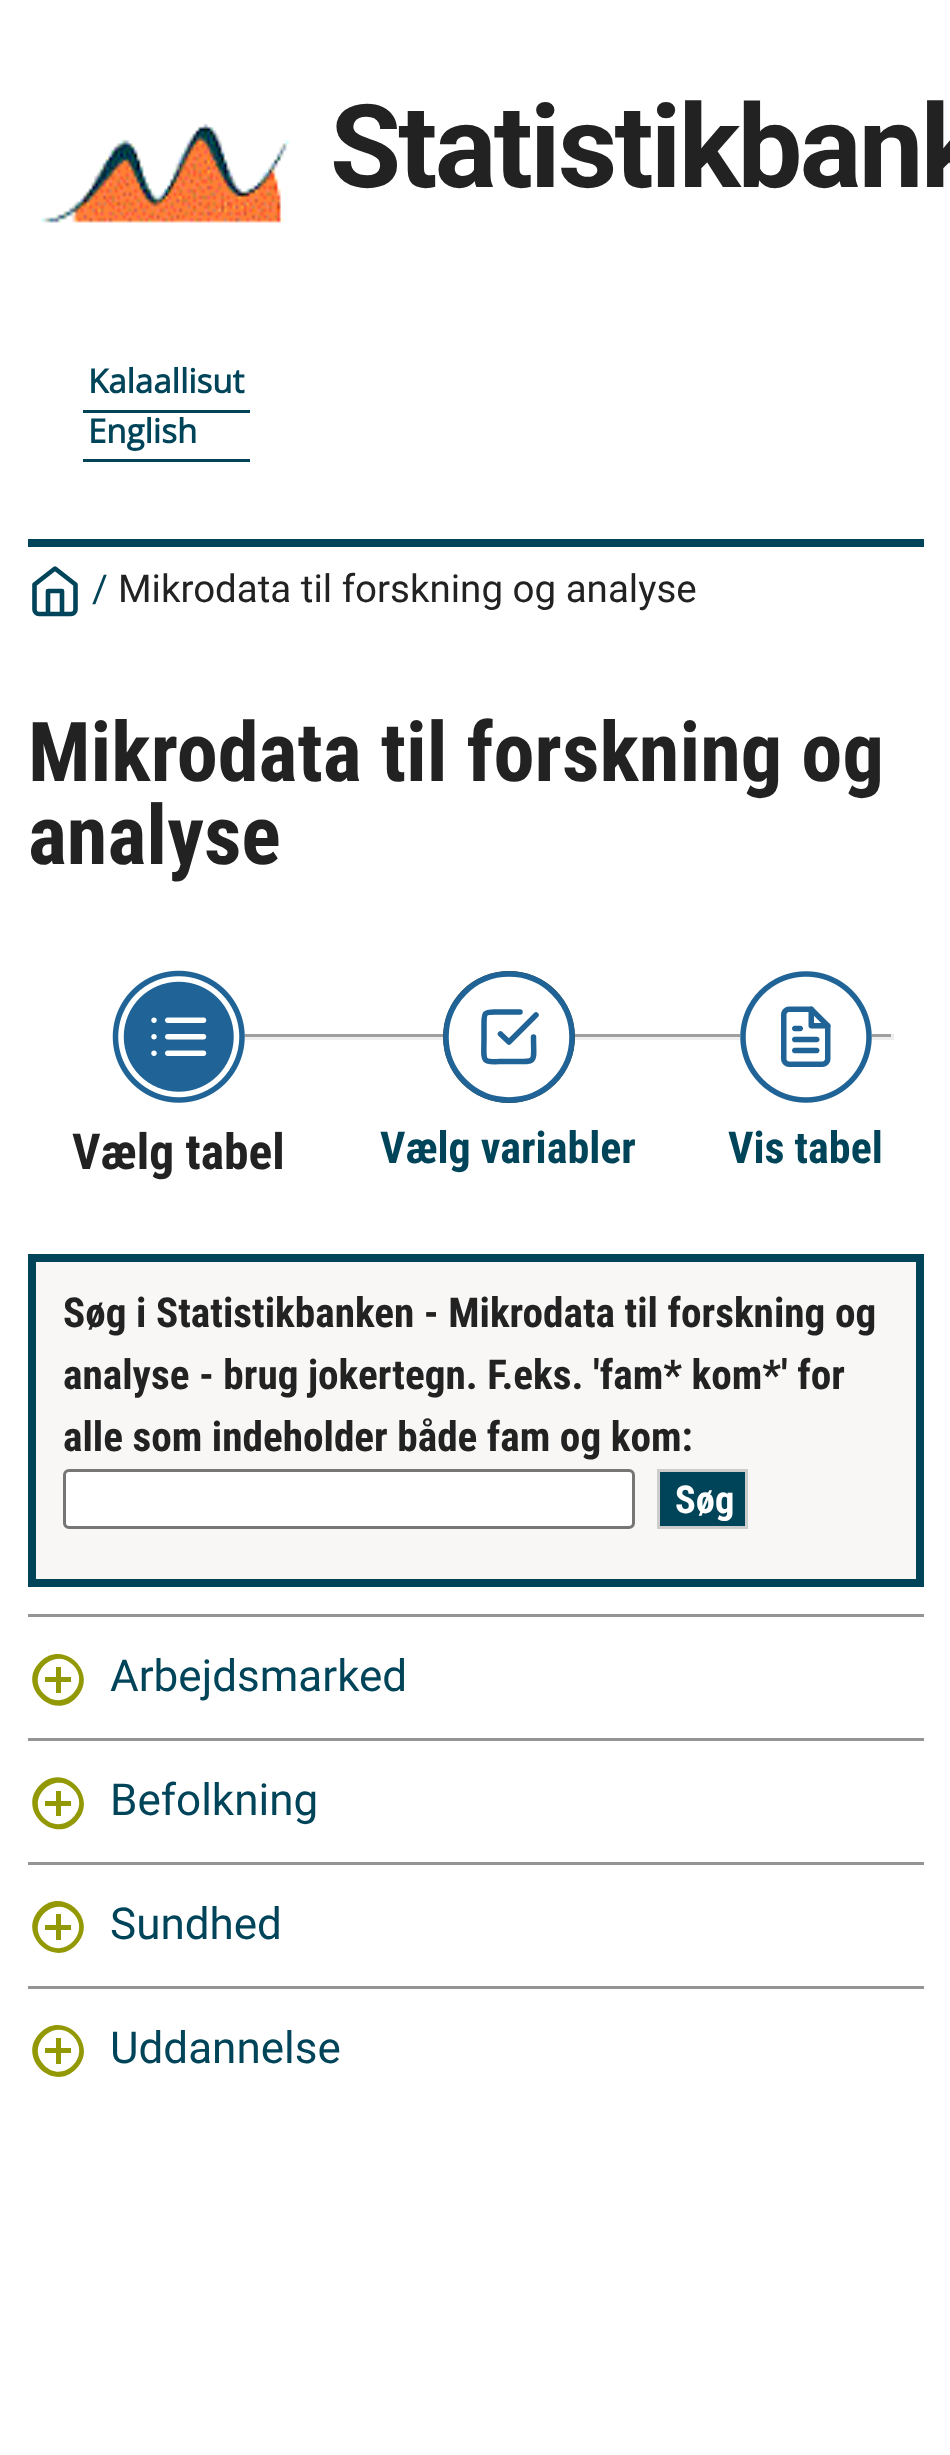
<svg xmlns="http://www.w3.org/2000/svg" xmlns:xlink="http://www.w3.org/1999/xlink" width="950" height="2455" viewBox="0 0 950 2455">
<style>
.cls-1{font:bold 115.5px Roboto;letter-spacing:-2.75px;fill:#222222}
.cls-2{font:bold 33px Open Sans;fill:#004459}
.cls-3{font:38.5px Roboto;fill:#004459}
.cls-4{font:38.5px Roboto;fill:#222222}
.cls-5{font:bold 82.5px Roboto Condensed;fill:#222222}
.cls-6{font:bold 49.5px Roboto Condensed;fill:#222222}
.cls-7{font:bold 44px Roboto Condensed;fill:#004459}
.cls-8{font:bold 41.25px Roboto Condensed;fill:#222222}
.cls-9{font:bold 38.5px Roboto Condensed;fill:#ffffff}
.cls-10{font:44px Roboto;fill:#004459}
</style>
<rect width="100%" height="100%" fill="#ffffff"/>
<image xlink:href="image0.png" x="40" y="123" width="250" height="100"/>
<rect fill="#004459" x="83" y="410" width="167" height="3"/>
<rect fill="#004459" x="83" y="459" width="167" height="3"/>
<rect fill="#004459" x="28" y="539" width="896" height="8"/>
<path fill="none" stroke="#004459" stroke-width="4.6" stroke-linecap="round" stroke-linejoin="round" d="M34.5 584.5L55 568.5L75.5 584.5V609.5C75.5 612 73.5 614 71 614H39C36.5 614 34.5 612 34.5 609.5ZM48 614V591H62V614"/>
<rect fill="#9f9f9f" x="244" y="1034" width="200" height="3"/>
<rect fill="#eeeeee" x="244" y="1037" width="200" height="3"/>
<rect fill="#9f9f9f" x="574" y="1034" width="320" height="3"/>
<rect fill="#eeeeee" x="891" y="1034" width="3" height="6"/>
<rect fill="#eeeeee" x="574" y="1037" width="320" height="3"/>
<image xlink:href="image1.png" x="112" y="970" width="133" height="133"/>
<circle fill="#274247" cx="509" cy="1037" r="66"/>
<circle fill="#ffffff" stroke="#206396" stroke-width="5.5" cx="509" cy="1037" r="63"/>
<path fill="none" stroke="#206396" stroke-width="5.5" stroke-linecap="round" stroke-linejoin="round" d="M500.5 1034L509 1042L536 1015M533.5 1037C533.5 1064.5 538 1061.5 509 1061.5C480 1061.5 484 1065.5 484 1037V1024C484 1013.5 484 1012 494.5 1012H520"/>
<image xlink:href="image2.png" x="740" y="971" width="132" height="132"/>
<rect fill="#f8f7f6" stroke="#004459" stroke-width="8" x="32" y="1258" width="888" height="325"/>
<rect fill="#ffffff" stroke="#767676" stroke-width="3" x="64.5" y="1470.5" width="569" height="57" rx="4.5"/>
<rect fill="#004459" stroke="#cccccc" stroke-width="3" x="658.5" y="1470.5" width="88" height="57"/>
<rect fill="#949494" x="28" y="1614" width="896" height="3"/>
<path fill="#939905" d="M44 1694C63 1713 92 1684 73 1665C54 1646 25 1675 44 1694ZM40 1662C64 1638 100 1674 76 1698C53 1722 16 1685 40 1662ZM61 1667V1677H71V1682H61V1693H56V1682H45V1677H56V1667Z"/>
<rect fill="#949494" x="28" y="1738" width="896" height="3"/>
<path fill="#939905" d="M44 1818C63 1837 92 1808 73 1789C54 1770 25 1799 44 1818ZM40 1785C64 1761 100 1798 76 1822C53 1845 16 1809 40 1785ZM61 1791V1801H71V1806H61V1816H56V1806H45V1801H56V1791Z"/>
<rect fill="#949494" x="28" y="1862" width="896" height="3"/>
<path fill="#939905" d="M44 1942C63 1961 92 1932 73 1913C54 1894 25 1923 44 1942ZM40 1909C64 1885 100 1921 76 1945C53 1969 16 1933 40 1909ZM61 1914V1925H71V1930H61V1940H56V1930H45V1925H56V1914Z"/>
<rect fill="#949494" x="28" y="1986" width="896" height="3"/>
<path fill="#939905" d="M44 2065C63 2085 92 2056 73 2036C54 2017 25 2046 44 2065ZM40 2033C64 2009 100 2045 76 2069C53 2093 16 2057 40 2033ZM61 2038V2048H71V2053H61V2064H56V2053H45V2048H56V2038Z"/>
<text class="cls-1" x="330" y="187">Statistikbank</text>
<text class="cls-2"><tspan x="88" y="393">Kalaallisut</tspan><tspan x="88" y="443">English</tspan></text>
<text class="cls-3" x="92" y="602">/</text>
<text class="cls-4" x="118" y="602">Mikrodata til forskning og analyse</text>
<text class="cls-5"><tspan x="28" y="781">Mikrodata til forskning og</tspan><tspan x="28" y="864">analyse</tspan></text>
<text class="cls-6" x="72" y="1169">Vælg tabel</text>
<text class="cls-7" x="380" y="1163">Vælg variabler</text>
<text class="cls-7" x="728" y="1163">Vis tabel</text>
<text class="cls-8"><tspan x="63" y="1327">Søg i Statistikbanken - Mikrodata til forskning og</tspan><tspan x="63" y="1389">analyse - brug jokertegn. F.eks. 'fam* kom*' for</tspan><tspan x="63" y="1451">alle som indeholder både fam og kom:</tspan></text>
<text class="cls-9" x="675" y="1513">Søg</text>
<text class="cls-10" x="110" y="1691">Arbejdsmarked</text>
<text class="cls-10" x="110" y="1815">Befolkning</text>
<text class="cls-10" x="110" y="1939">Sundhed</text>
<text class="cls-10" x="110" y="2063">Uddannelse</text>
</svg>
